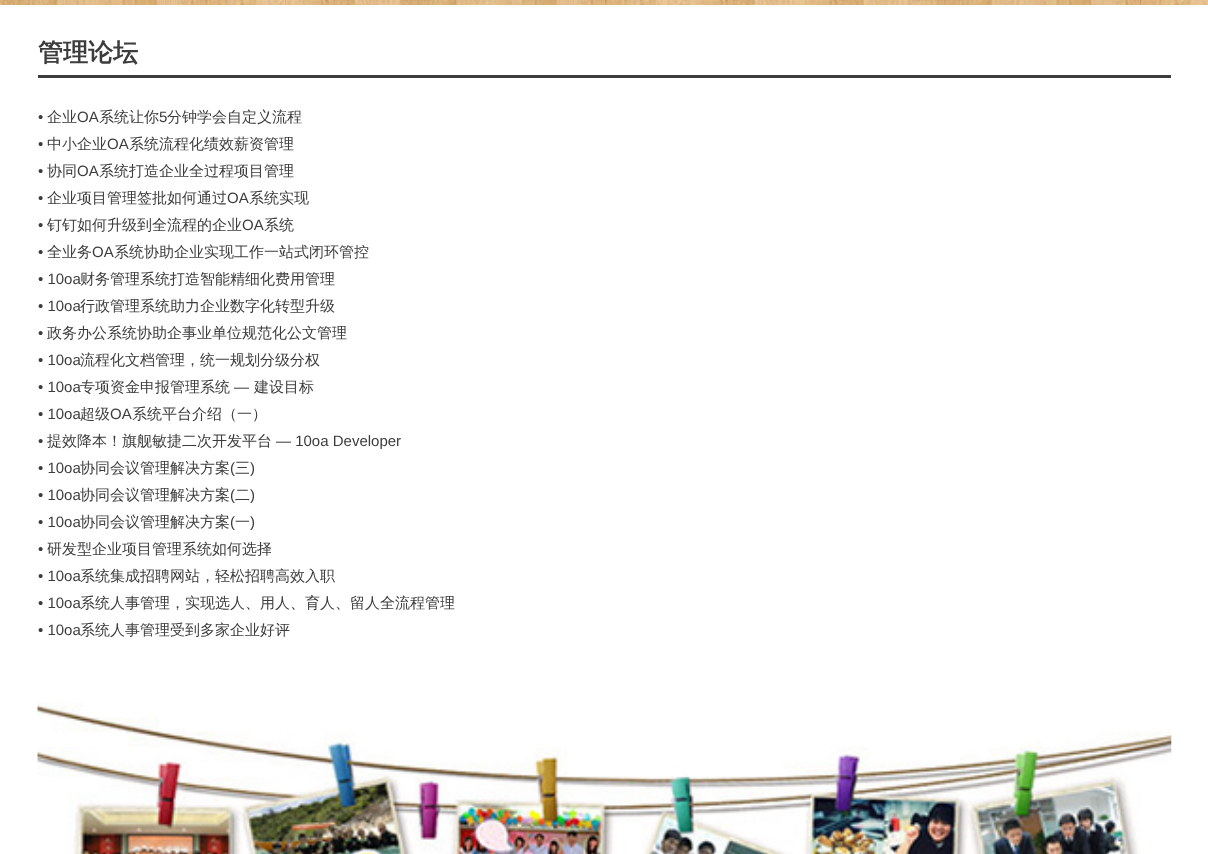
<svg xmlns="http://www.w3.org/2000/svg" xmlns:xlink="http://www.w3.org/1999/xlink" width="1208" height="854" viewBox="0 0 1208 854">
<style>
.cls-1{font:bold 25px WenQuanYi Zen Hei;fill:#3c3c3c}
.cls-2{font:15px Liberation Sans;fill:#3c3c3c}
.cls-3{font:500 15px WenQuanYi Zen Hei;fill:#3c3c3c}
</style>
<rect width="100%" height="100%" fill="#ffffff"/>
<image xlink:href="image0.png" x="0" y="0" width="1208" height="5"/>
<rect fill="#3c3c3c" x="38" y="75" width="1133" height="3"/>
<image xlink:href="image1.png" x="37" y="702" width="1135" height="152"/>
<text class="cls-1" x="38" y="61">管理论坛</text>
<text class="cls-2" x="38" y="122">•</text>
<text class="cls-3" x="47" y="122">企业</text>
<text class="cls-2" x="77" y="122">OA</text>
<text class="cls-3" x="99" y="122">系统让你</text>
<text class="cls-2" x="159" y="122">5</text>
<text class="cls-3" x="167" y="122">分钟学会自定义流程</text>
<text class="cls-2" x="38" y="149">•</text>
<text class="cls-3" x="47" y="149">中小企业</text>
<text class="cls-2" x="107" y="149">OA</text>
<text class="cls-3" x="129" y="149">系统流程化绩效薪资管理</text>
<text class="cls-2" x="38" y="176">•</text>
<text class="cls-3" x="47" y="176">协同</text>
<text class="cls-2" x="77" y="176">OA</text>
<text class="cls-3" x="99" y="176">系统打造企业全过程项目管理</text>
<text class="cls-2" x="38" y="203">•</text>
<text class="cls-3" x="47" y="203">企业项目管理签批如何通过</text>
<text class="cls-2" x="227" y="203">OA</text>
<text class="cls-3" x="249" y="203">系统实现</text>
<text class="cls-2" x="38" y="230">•</text>
<text class="cls-3" x="47" y="230">钉钉如何升级到全流程的企业</text>
<text class="cls-2" x="242" y="230">OA</text>
<text class="cls-3" x="264" y="230">系统</text>
<text class="cls-2" x="38" y="257">•</text>
<text class="cls-3" x="47" y="257">全业务</text>
<text class="cls-2" x="92" y="257">OA</text>
<text class="cls-3" x="114" y="257">系统协助企业实现工作一站式闭环管控</text>
<text class="cls-2" x="38" y="284">• 10oa</text>
<text class="cls-3" x="80" y="284">财务管理系统打造智能精细化费用管理</text>
<text class="cls-2" x="38" y="311">• 10oa</text>
<text class="cls-3" x="80" y="311">行政管理系统助力企业数字化转型升级</text>
<text class="cls-2" x="38" y="338">•</text>
<text class="cls-3" x="47" y="338">政务办公系统协助企事业单位规范化公文管理</text>
<text class="cls-2" x="38" y="365">• 10oa</text>
<text class="cls-3" x="80" y="365">流程化文档管理，统一规划分级分权</text>
<text class="cls-2" x="38" y="392">• 10oa</text>
<text class="cls-3" x="80" y="392">专项资金申报管理系统</text>
<text class="cls-2" x="234" y="392">—</text>
<text class="cls-3" x="254" y="392">建设目标</text>
<text class="cls-2" x="38" y="419">• 10oa</text>
<text class="cls-3" x="80" y="419">超级</text>
<text class="cls-2" x="110" y="419">OA</text>
<text class="cls-3" x="132" y="419">系统平台介绍（一）</text>
<text class="cls-2" x="38" y="446">•</text>
<text class="cls-3" x="47" y="446">提效降本！旗舰敏捷二次开发平台</text>
<text class="cls-2" x="276" y="446">— 10oa Developer</text>
<text class="cls-2" x="38" y="473">• 10oa</text>
<text class="cls-3" x="80" y="473">协同会议管理解决方案</text>
<text class="cls-2" x="230" y="473">(</text>
<text class="cls-3" x="235" y="473">三</text>
<text class="cls-2" x="250" y="473">)</text>
<text class="cls-2" x="38" y="500">• 10oa</text>
<text class="cls-3" x="80" y="500">协同会议管理解决方案</text>
<text class="cls-2" x="230" y="500">(</text>
<text class="cls-3" x="235" y="500">二</text>
<text class="cls-2" x="250" y="500">)</text>
<text class="cls-2" x="38" y="527">• 10oa</text>
<text class="cls-3" x="80" y="527">协同会议管理解决方案</text>
<text class="cls-2" x="230" y="527">(</text>
<text class="cls-3" x="235" y="527">一</text>
<text class="cls-2" x="250" y="527">)</text>
<text class="cls-2" x="38" y="554">•</text>
<text class="cls-3" x="47" y="554">研发型企业项目管理系统如何选择</text>
<text class="cls-2" x="38" y="581">• 10oa</text>
<text class="cls-3" x="80" y="581">系统集成招聘网站，轻松招聘高效入职</text>
<text class="cls-2" x="38" y="608">• 10oa</text>
<text class="cls-3" x="80" y="608">系统人事管理，实现选人、用人、育人、留人全流程管理</text>
<text class="cls-2" x="38" y="635">• 10oa</text>
<text class="cls-3" x="80" y="635">系统人事管理受到多家企业好评</text>
</svg>
